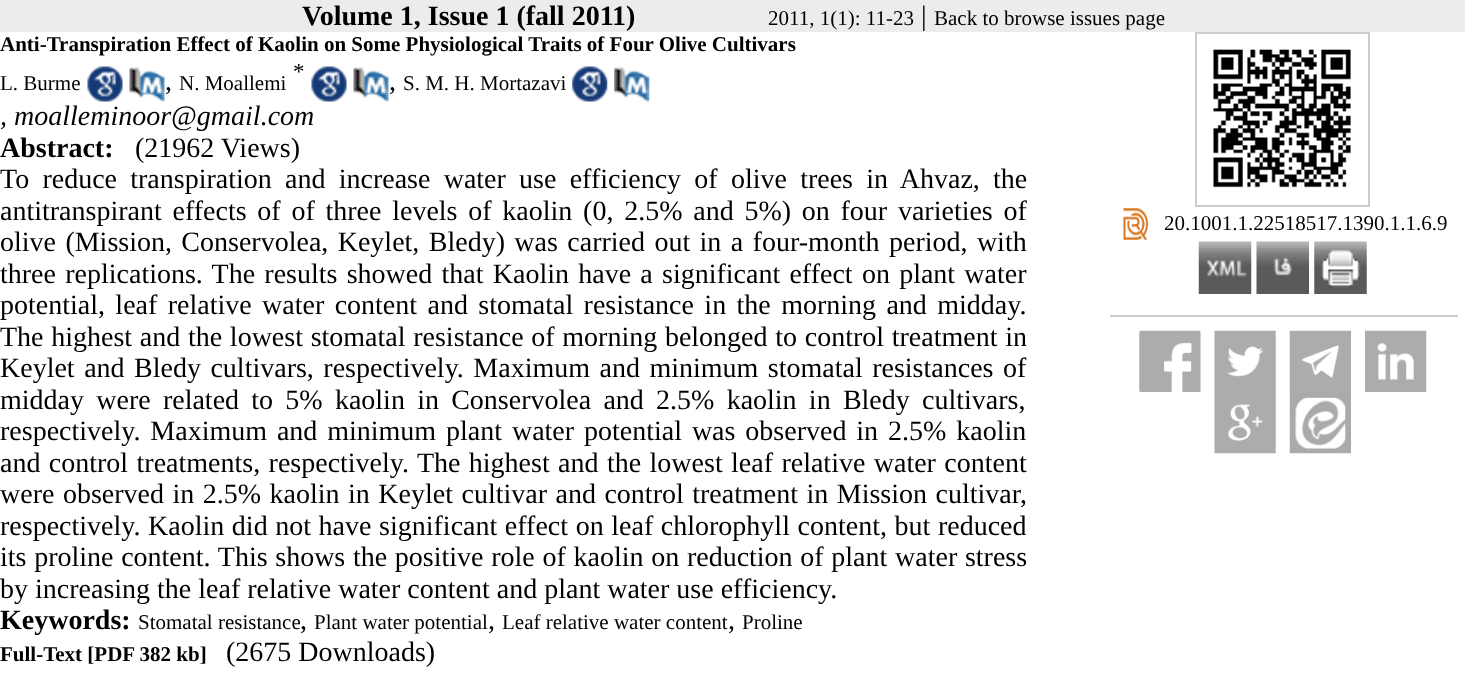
<svg xmlns="http://www.w3.org/2000/svg" xmlns:xlink="http://www.w3.org/1999/xlink" width="1465" height="684" viewBox="0 0 1465 684">
<style>
.cls-1{font:bold 28px Liberation Serif;fill:#000000}
.cls-2{font:21px Liberation Serif;fill:#000000}
.cls-3{font:28px Liberation Serif;fill:#000000}
.cls-4{font:bold 21px Liberation Serif;fill:#000000}
.cls-5{font:23px Liberation Serif;fill:#000000}
.cls-6{font:italic 28px Liberation Serif;fill:#000000}
</style>
<rect width="100%" height="100%" fill="#ffffff"/>
<rect fill="#edecec" x="0" y="0" width="1465" height="32"/>
<image xlink:href="image0.png" x="87" y="66" width="36" height="36"/>
<image xlink:href="image1.png" x="129" y="66" width="36" height="36"/>
<image xlink:href="image2.png" x="311" y="66" width="36" height="36"/>
<image xlink:href="image3.png" x="353" y="66" width="36" height="36"/>
<image xlink:href="image4.png" x="572" y="66" width="36" height="36"/>
<image xlink:href="image5.png" x="614" y="66" width="36" height="36"/>
<rect fill="none" stroke="#cccccc" stroke-width="2" x="1196" y="33" width="173" height="173"/>
<image xlink:href="image6.png" x="1213" y="49" width="138" height="139"/>
<image xlink:href="image7.png" x="1123" y="208" width="25" height="32"/>
<image xlink:href="image8.png" x="1198" y="241" width="54" height="53"/>
<image xlink:href="image9.png" x="1256" y="241" width="53" height="53"/>
<image xlink:href="image10.png" x="1314" y="241" width="53" height="53"/>
<rect fill="#cccccc" x="1110" y="315" width="348" height="2"/>
<image xlink:href="image11.png" x="1139" y="330" width="62" height="62"/>
<image xlink:href="image12.png" x="1214" y="330" width="62" height="62"/>
<image xlink:href="image13.png" x="1289" y="330" width="62" height="62"/>
<image xlink:href="image14.png" x="1365" y="330" width="62" height="62"/>
<image xlink:href="image15.png" x="1214" y="392" width="62" height="62"/>
<image xlink:href="image16.png" x="1289" y="392" width="62" height="62"/>
<text class="cls-1" x="302" y="25">Volume 1, Issue 1 (fall 2011)</text>
<text class="cls-2" x="768" y="25">2011, 1(1): 11-23</text>
<text class="cls-3" x="921" y="25">|</text>
<text class="cls-2" x="934" y="25">Back to browse issues page</text>
<text class="cls-4" x="0" y="51">Anti-Transpiration Effect of Kaolin on Some Physiological Traits of Four Olive Cultivars</text>
<text class="cls-2" x="0" y="90">L. Burme</text>
<text class="cls-3" x="165" y="90">,</text>
<text class="cls-2" x="179" y="90">N. Moallemi</text>
<text class="cls-5" x="293" y="79">*</text>
<text class="cls-3" x="389" y="90">,</text>
<text class="cls-2" x="403" y="90">S. M. H. Mortazavi</text>
<text class="cls-6" x="0" y="125">, moalleminoor@gmail.com</text>
<text class="cls-1" x="0" y="157">Abstract:</text>
<text class="cls-3" x="135" y="157">(21962 Views)</text>
<text class="cls-3"><tspan x="0" y="188" word-spacing="6.25">To reduce transpiration and increase water use efficiency of olive trees in Ahvaz, the</tspan><tspan x="0" y="220" word-spacing="3.75">antitranspirant effects of of three levels of kaolin (0, 2.5% and 5%) on four varieties of</tspan><tspan x="0" y="251" word-spacing="2.4">olive (Mission, Conservolea, Keylet, Bledy) was carried out in a four-month period, with</tspan><tspan x="0" y="283" word-spacing="2.25">three replications. The results showed that Kaolin have a significant effect on plant water</tspan><tspan x="0" y="314" word-spacing="3.4">potential, leaf relative water content and stomatal resistance in the morning and midday.</tspan><tspan x="0" y="346" word-spacing="0.7">The highest and the lowest stomatal resistance of morning belonged to control treatment in</tspan><tspan x="0" y="377" word-spacing="2.5">Keylet and Bledy cultivars, respectively. Maximum and minimum stomatal resistances of</tspan><tspan x="0" y="409" word-spacing="5.25">midday were related to 5% kaolin in Conservolea and 2.5% kaolin in Bledy cultivars,</tspan><tspan x="0" y="440" word-spacing="2.9">respectively. Maximum and minimum plant water potential was observed in 2.5% kaolin</tspan><tspan x="0" y="472" word-spacing="1.4">and control treatments, respectively. The highest and the lowest leaf relative water content</tspan><tspan x="0" y="503" word-spacing="1.5">were observed in 2.5% kaolin in Keylet cultivar and control treatment in Mission cultivar,</tspan><tspan x="0" y="535" word-spacing="0.6">respectively. Kaolin did not have significant effect on leaf chlorophyll content, but reduced</tspan><tspan x="0" y="566" word-spacing="0.7">its proline content. This shows the positive role of kaolin on reduction of plant water stress</tspan><tspan x="0" y="598">by increasing the leaf relative water content and plant water use efficiency.</tspan></text>
<text class="cls-1" x="0" y="629">Keywords:</text>
<text class="cls-2" x="138" y="629">Stomatal resistance</text>
<text class="cls-3" x="300" y="629">,</text>
<text class="cls-2" x="314" y="629">Plant water potential</text>
<text class="cls-3" x="488" y="629">,</text>
<text class="cls-2" x="502" y="629">Leaf relative water content</text>
<text class="cls-3" x="728" y="629">,</text>
<text class="cls-2" x="742" y="629">Proline</text>
<text class="cls-4" x="0" y="661">Full-Text [PDF 382 kb]</text>
<text class="cls-3" x="226" y="661">(2675 Downloads)</text>
<text class="cls-2" x="1164" y="230">20.1001.1.22518517.1390.1.1.6.9</text>
</svg>
